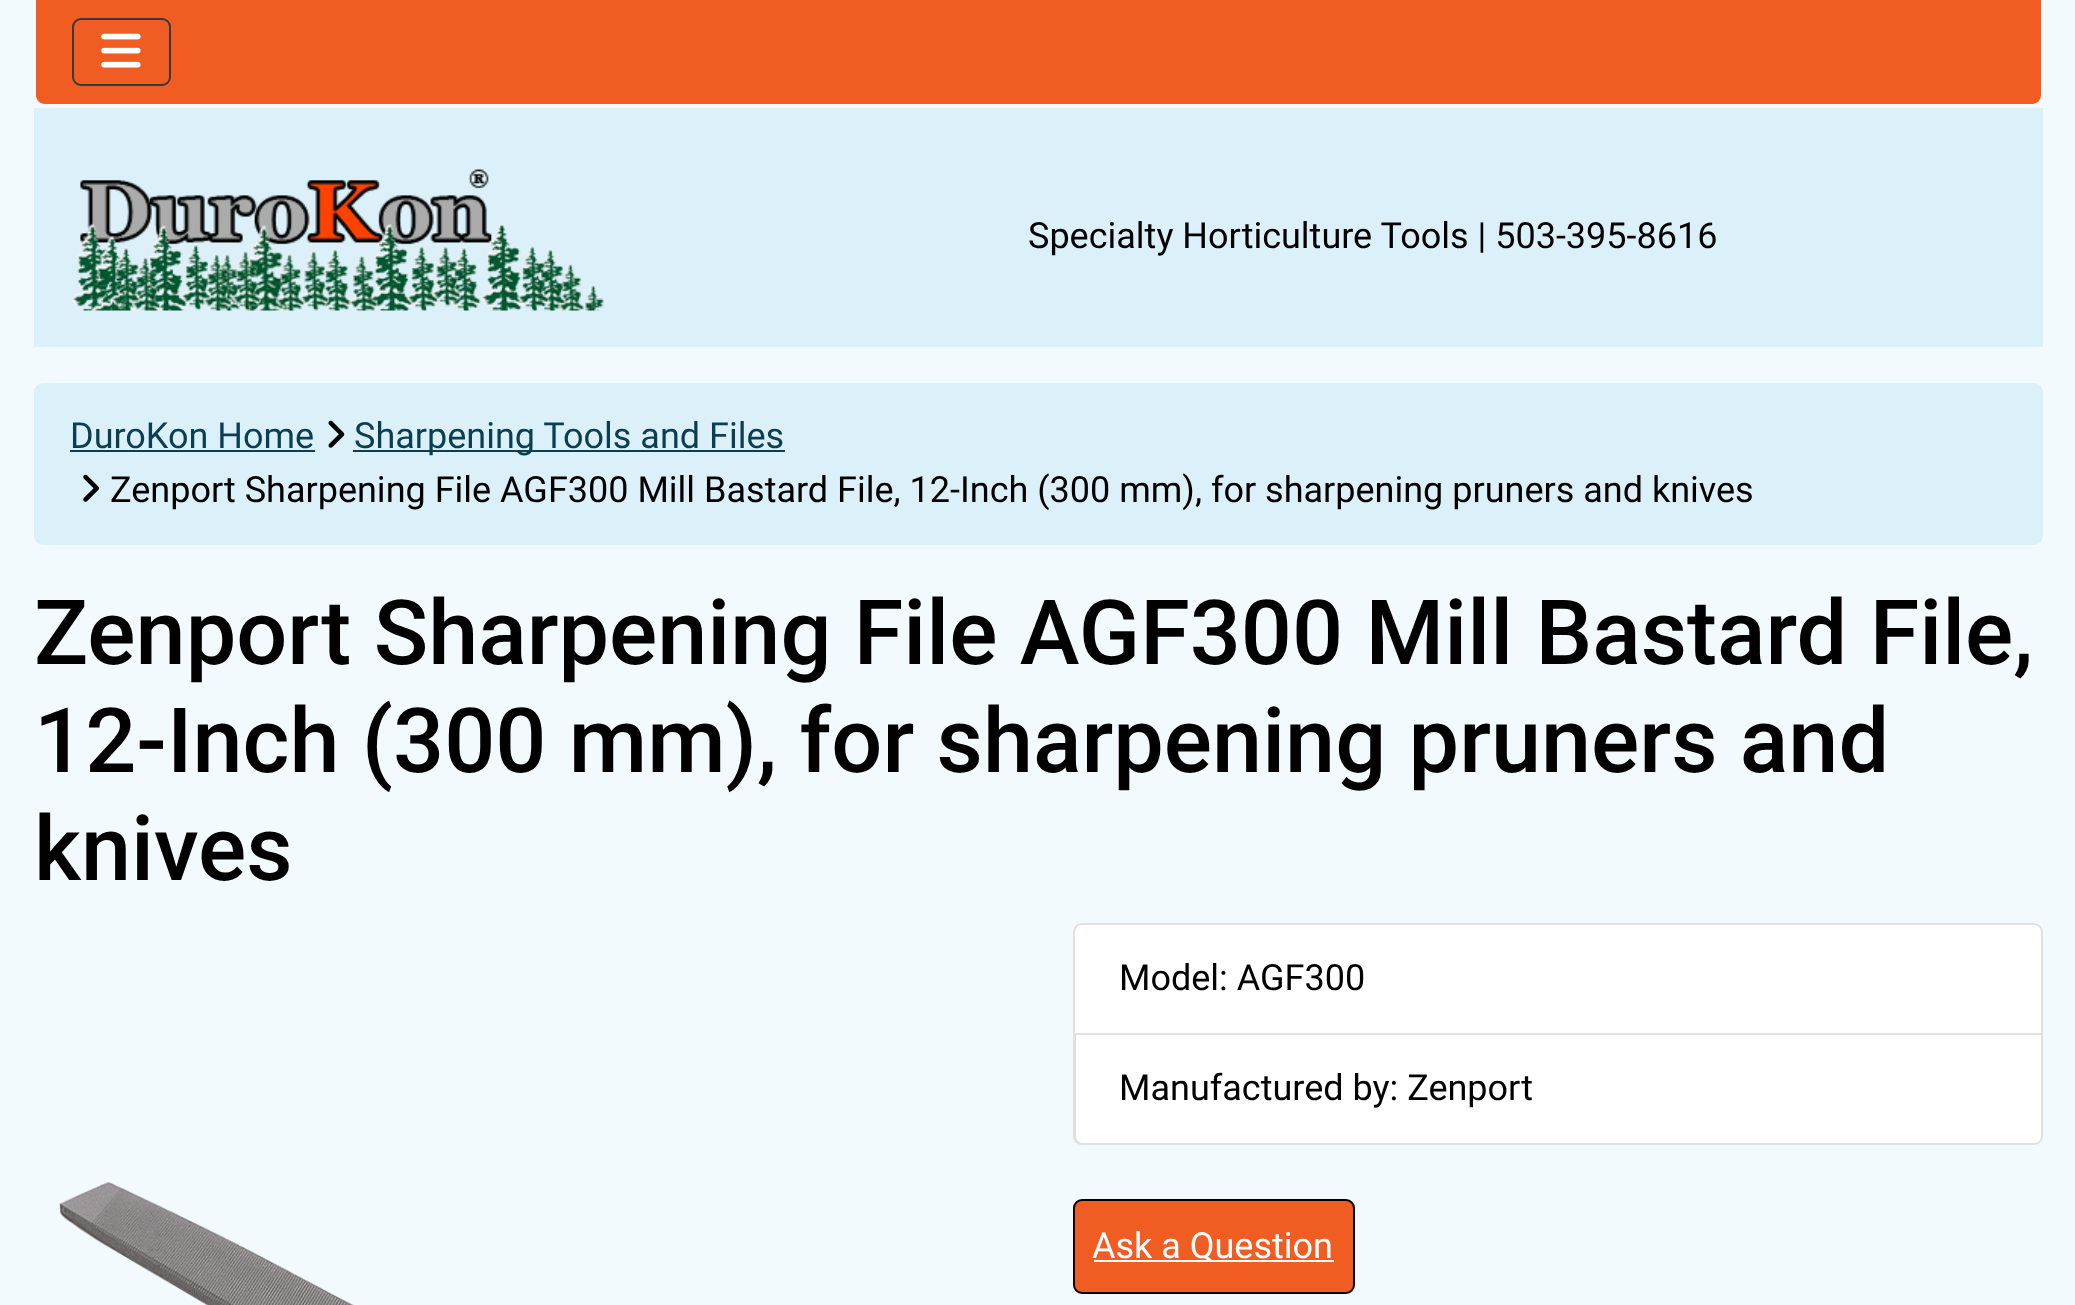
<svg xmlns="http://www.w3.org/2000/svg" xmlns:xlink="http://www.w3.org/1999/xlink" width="2075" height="1305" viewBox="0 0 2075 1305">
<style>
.cls-1{font:36px Roboto;fill:#000000}
.cls-2{font:36px Roboto;fill:#0a3f52}
.cls-3{font:500 90px Roboto;fill:#000000}
.cls-4{font:36px Roboto;fill:#ffffff}
</style>
<rect width="100%" height="100%" fill="#f3fafd"/>
<rect fill="#dbf0f9" x="34" y="108" width="2009" height="239"/>
<path fill="#f15c22" d="M36 0H2041V95C2041 100 2037 104 2032 104H45C40 104 36 100 36 95Z"/>
<rect fill="none" stroke="#343a40" stroke-width="2" x="73" y="19" width="97" height="66" rx="8"/>
<image xlink:href="image0.png" x="101" y="33" width="40" height="35"/>
<image xlink:href="image1.png" x="71" y="169" width="533" height="142"/>
<rect fill="#dbf0f9" x="34" y="383" width="2009" height="162" rx="9"/>
<rect fill="#0a3f52" x="70" y="450" width="245" height="2"/>
<image xlink:href="image2.png" x="328" y="420" width="17" height="28"/>
<rect fill="#0a3f52" x="353" y="450" width="432" height="2"/>
<image xlink:href="image3.png" x="83" y="474" width="16" height="28"/>
<image xlink:href="image4.png" x="59" y="1181" width="295" height="124"/>
<path fill="#ffffff" d="M1082 923H2034C2039 923 2043 927 2043 932V1035H1073V932C1073 927 1077 923 1082 923Z"/>
<path fill="none" stroke="#000000" stroke-opacity="0.12" stroke-width="2" d="M1082 924H2034C2038.5 924 2042 927.5 2042 932V1034H1074V932C1074 927.5 1077.5 924 1082 924Z"/>
<path fill="#ffffff" d="M1073 1035H2043V1136C2043 1141 2039 1145 2034 1145H1082C1077 1145 1073 1141 1073 1136Z"/>
<path fill="#000000" fill-opacity="0.12" fill-rule="evenodd" d="M1073 1035H2043V1136C2043 1141 2039 1145 2034 1145H1082C1077 1145 1073 1141 1073 1136ZM1076 1035H2041V1136C2041 1140 2038 1143 2034 1143H1082C1079 1143 1076 1140 1076 1136Z"/>
<rect fill="#f15c22" stroke="#000000" stroke-width="2" x="1074" y="1200" width="280" height="93" rx="8"/>
<rect fill="#ffffff" x="1094" y="1260" width="240" height="2"/>
<text class="cls-1" x="1028" y="248">Specialty Horticulture Tools | 503-395-8616</text>
<text class="cls-2" x="70" y="448">DuroKon Home</text>
<text class="cls-2" x="354" y="448">Sharpening Tools and Files</text>
<text class="cls-1" x="110" y="502">Zenport Sharpening File AGF300 Mill Bastard File, 12-Inch (300 mm), for sharpening pruners and knives</text>
<text class="cls-3"><tspan x="34" y="664">Zenport Sharpening File AGF300 Mill Bastard File,</tspan><tspan x="34" y="772">12-Inch (300 mm), for sharpening pruners and</tspan><tspan x="34" y="880">knives</tspan></text>
<text class="cls-1" x="1119" y="990">Model: AGF300</text>
<text class="cls-1" x="1119" y="1100">Manufactured by: Zenport</text>
<text class="cls-4" x="1092" y="1258">Ask a Question</text>
</svg>
